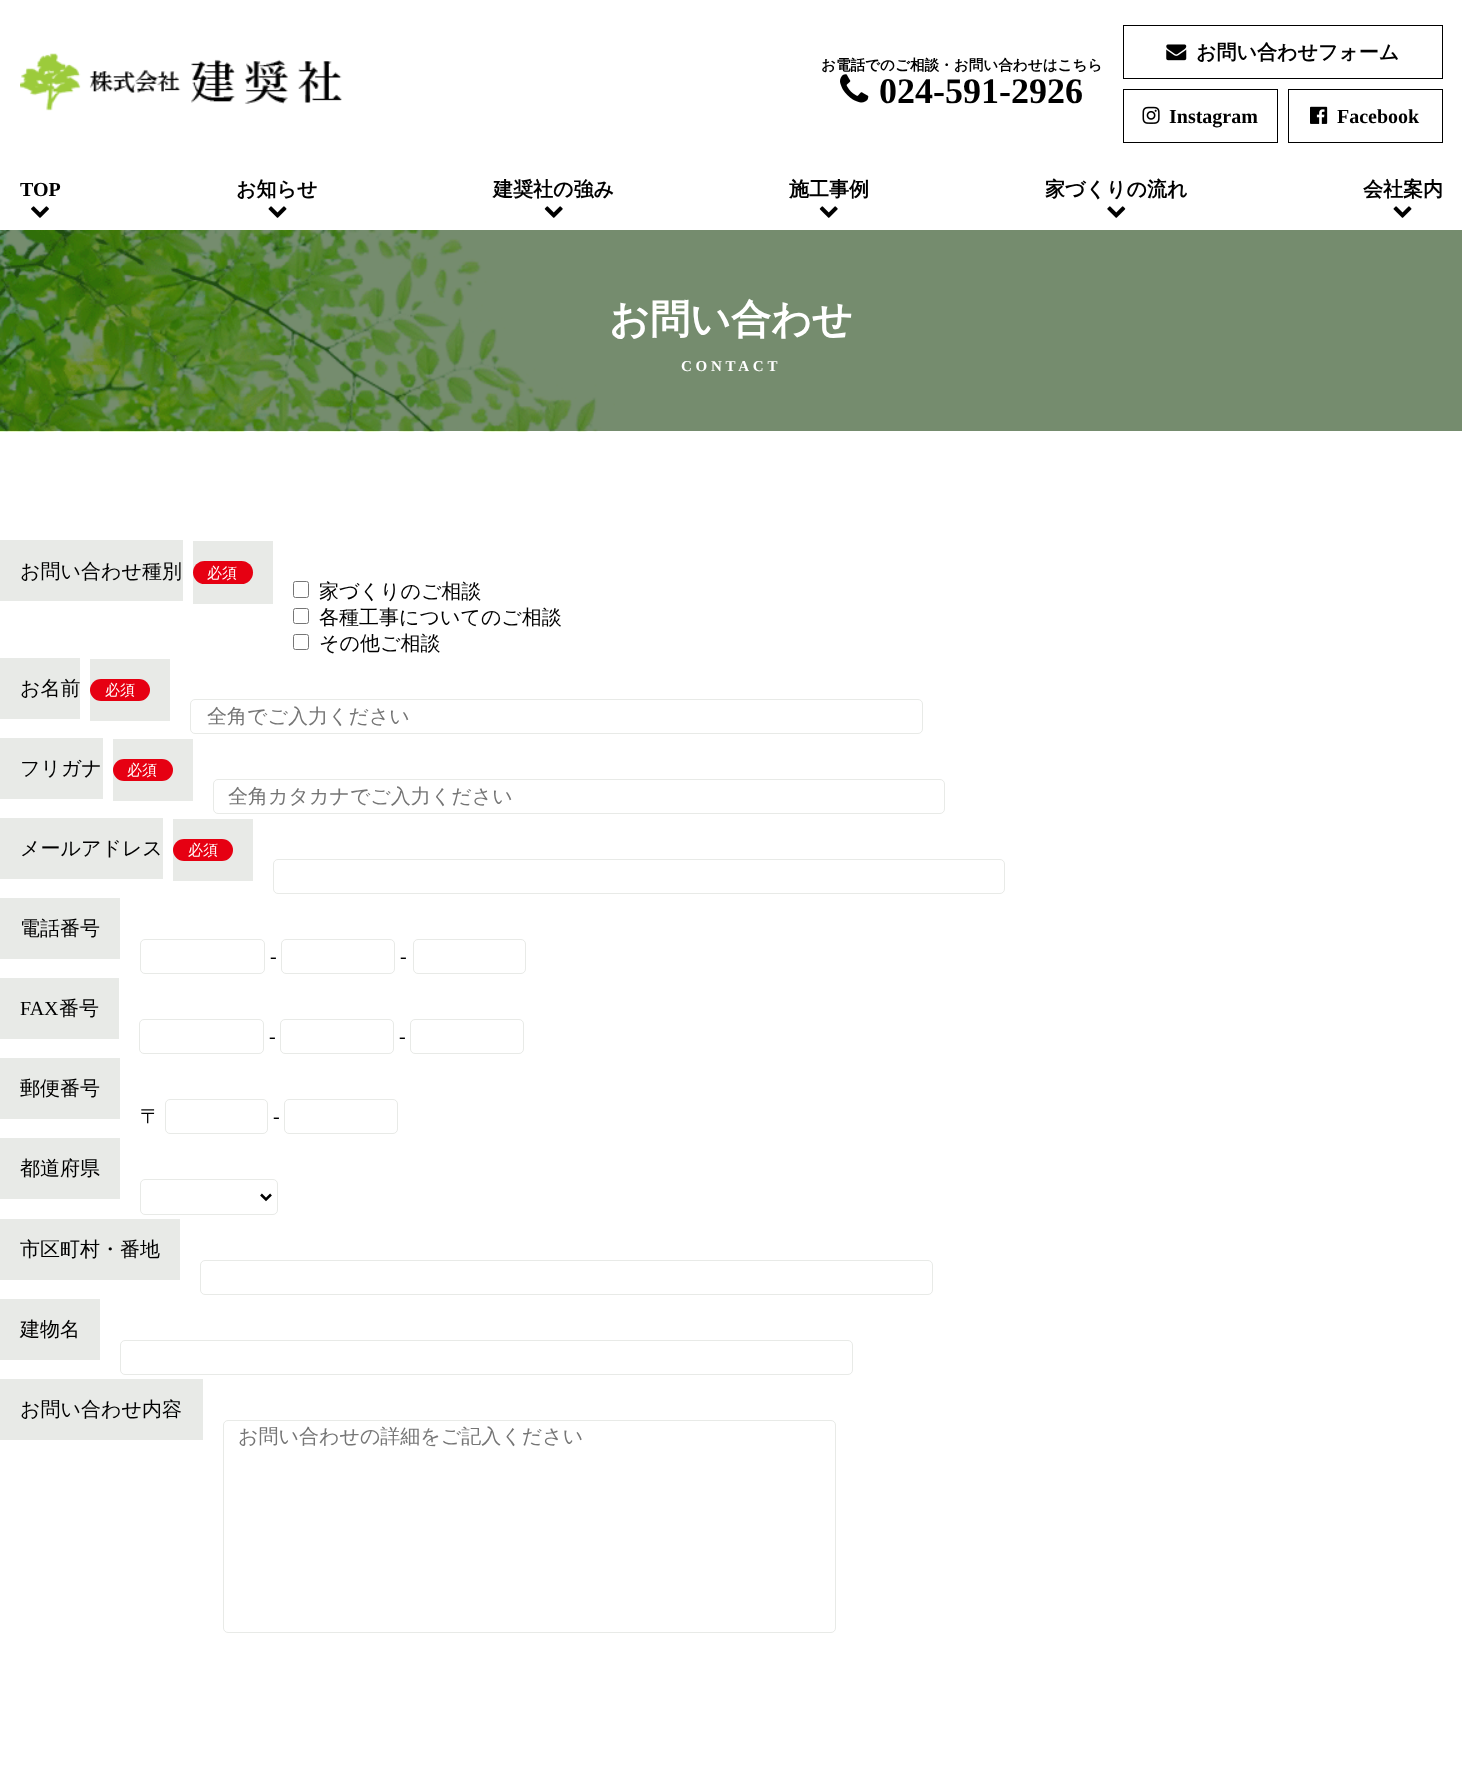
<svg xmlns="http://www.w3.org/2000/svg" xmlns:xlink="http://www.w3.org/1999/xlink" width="1462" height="1773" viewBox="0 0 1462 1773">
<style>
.cls-1{font:bold 14.6px WenQuanYi Zen Hei;fill:#000000}
.cls-2{font:bold 36px Liberation Serif;fill:#000000}
.cls-3{font:bold 20px WenQuanYi Zen Hei;fill:#000000}
.cls-4{font:bold 20px Liberation Serif;fill:#000000}
.cls-5{font:bold 40px WenQuanYi Zen Hei;fill:#ffffff}
.cls-6{font:bold 15px Liberation Serif;letter-spacing:3.75px;fill:#ffffff}
.cls-7{font:500 20px WenQuanYi Zen Hei;fill:#000000}
.cls-8{font:500 15px WenQuanYi Zen Hei;fill:#ffffff}
.cls-9{font:500 20px WenQuanYi Zen Hei;fill:#757575}
.cls-10{font:20px Liberation Serif;fill:#000000}
</style>
<rect width="100%" height="100%" fill="#ffffff"/>
<rect fill="#758c6e" x="615" y="230" width="847" height="201"/>
<image xlink:href="image0.png" x="20" y="53" width="322" height="58"/>
<image xlink:href="image1.png" x="840" y="74" width="29" height="29"/>
<rect fill="none" stroke="#000000" x="1123.5" y="25.5" width="319" height="53"/>
<image xlink:href="image2.png" x="1166" y="44" width="21" height="17"/>
<rect fill="none" stroke="#000000" x="1123.5" y="89.5" width="154" height="53"/>
<image xlink:href="image3.png" x="1142" y="106" width="18" height="18"/>
<rect fill="none" stroke="#000000" x="1288.5" y="89.5" width="154" height="53"/>
<image xlink:href="image4.png" x="1310" y="106" width="18" height="18"/>
<image xlink:href="image5.png" x="31" y="206" width="18" height="12"/>
<image xlink:href="image6.png" x="268" y="206" width="19" height="12"/>
<image xlink:href="image7.png" x="544" y="206" width="19" height="12"/>
<image xlink:href="image7.png" x="819" y="206" width="19" height="12"/>
<image xlink:href="image8.png" x="1107" y="206" width="19" height="12"/>
<image xlink:href="image6.png" x="1393" y="206" width="19" height="12"/>
<image xlink:href="image9.png" x="0" y="230" width="615" height="202"/>
<rect fill="#e8eae7" x="0" y="540" width="183" height="61"/>
<rect fill="#e8eae7" x="193" y="541" width="80" height="63"/>
<rect fill="#e60012" x="193" y="561" width="60" height="23" rx="11.5"/>
<rect fill="none" stroke="#767676" x="293.5" y="581.5" width="15" height="16" rx="2"/>
<rect fill="none" stroke="#767676" x="293.5" y="608.5" width="15" height="15" rx="2"/>
<rect fill="none" stroke="#767676" x="293.5" y="634.5" width="15" height="15" rx="2"/>
<rect fill="#e8eae7" x="0" y="658" width="80" height="61"/>
<rect fill="#e8eae7" x="90" y="659" width="80" height="62"/>
<rect fill="#e60012" x="90" y="679" width="60" height="22" rx="11"/>
<rect fill="none" stroke="#e8eae7" x="190.5" y="699.5" width="732" height="34" rx="4.5"/>
<rect fill="#e8eae7" x="0" y="738" width="103" height="61"/>
<rect fill="#e8eae7" x="113" y="739" width="80" height="62"/>
<rect fill="#e60012" x="113" y="759" width="60" height="22" rx="11"/>
<rect fill="none" stroke="#e8eae7" x="213.5" y="779.5" width="731" height="34" rx="4.5"/>
<rect fill="#e8eae7" x="0" y="818" width="163" height="61"/>
<rect fill="#e8eae7" x="173" y="819" width="80" height="62"/>
<rect fill="#e60012" x="173" y="839" width="60" height="22" rx="11"/>
<rect fill="none" stroke="#e8eae7" x="273.5" y="859.5" width="731" height="34" rx="4.5"/>
<rect fill="#e8eae7" x="0" y="898" width="120" height="61"/>
<rect fill="none" stroke="#e8eae7" x="140.5" y="939.5" width="124" height="34" rx="4.5"/>
<rect fill="none" stroke="#e8eae7" x="281.5" y="939.5" width="113" height="34" rx="4.5"/>
<rect fill="none" stroke="#e8eae7" x="413.5" y="939.5" width="112" height="34" rx="4.5"/>
<rect fill="#e8eae7" x="0" y="978" width="119" height="61"/>
<rect fill="none" stroke="#e8eae7" x="139.5" y="1019.5" width="124" height="34" rx="4.5"/>
<rect fill="none" stroke="#e8eae7" x="280.5" y="1019.5" width="113" height="34" rx="4.5"/>
<rect fill="none" stroke="#e8eae7" x="410.5" y="1019.5" width="113" height="34" rx="4.5"/>
<rect fill="#e8eae7" x="0" y="1058" width="120" height="61"/>
<rect fill="none" stroke="#e8eae7" x="165.5" y="1099.5" width="102" height="34" rx="4.5"/>
<rect fill="none" stroke="#e8eae7" x="284.5" y="1099.5" width="113" height="34" rx="4.5"/>
<rect fill="#e8eae7" x="0" y="1138" width="120" height="61"/>
<rect fill="none" stroke="#e8eae7" x="140.5" y="1179.5" width="137" height="35" rx="4.5"/>
<path fill="none" stroke="#000000" stroke-width="2.5" d="M261 1194.5L266 1199.5L271 1194.5"/>
<rect fill="#e8eae7" x="0" y="1219" width="180" height="61"/>
<rect fill="none" stroke="#e8eae7" x="200.5" y="1260.5" width="732" height="34" rx="4.5"/>
<rect fill="#e8eae7" x="0" y="1299" width="100" height="61"/>
<rect fill="none" stroke="#e8eae7" x="120.5" y="1340.5" width="732" height="34" rx="4.5"/>
<rect fill="#e8eae7" x="0" y="1379" width="203" height="61"/>
<rect fill="none" stroke="#e8eae7" x="223.5" y="1420.5" width="612" height="212" rx="4.5"/>
<text class="cls-1" x="821" y="70">お電話でのご相談・お問い合わせはこちら</text>
<text class="cls-2" x="879" y="103">024-591-2926</text>
<text class="cls-3" x="1196" y="59">お問い合わせフォーム</text>
<text class="cls-4" x="1169" y="123">Instagram</text>
<text class="cls-4" x="1337" y="123">Facebook</text>
<text class="cls-4" x="20" y="196">TOP</text>
<text class="cls-3" x="236" y="196">お知らせ</text>
<text class="cls-3" x="493" y="196">建奨社の強み</text>
<text class="cls-3" x="789" y="196">施工事例</text>
<text class="cls-3" x="1045" y="196">家づくりの流れ</text>
<text class="cls-3" x="1363" y="196">会社案内</text>
<text class="cls-5" x="609" y="333">お問い合わせ</text>
<text class="cls-6" x="681" y="371">CONTACT</text>
<text class="cls-7" x="20" y="578">お問い合わせ種別</text>
<text class="cls-8" x="207" y="578">必須</text>
<text class="cls-7"><tspan x="319" y="598">家づくりのご相談</tspan><tspan x="319" y="624">各種工事についてのご相談</tspan><tspan x="319" y="650">その他ご相談</tspan></text>
<text class="cls-7" x="20" y="695">お名前</text>
<text class="cls-8" x="105" y="695">必須</text>
<text class="cls-9" x="207" y="723">全角でご入力ください</text>
<text class="cls-7" x="20" y="775">フリガナ</text>
<text class="cls-8" x="127" y="775">必須</text>
<text class="cls-9" x="228" y="803">全角カタカナでご入力ください</text>
<text class="cls-7" x="20" y="855">メールアドレス</text>
<text class="cls-8" x="188" y="855">必須</text>
<text class="cls-7" x="20" y="935">電話番号</text>
<text class="cls-10" x="270" y="963">-</text>
<text class="cls-10" x="400" y="963">-</text>
<text class="cls-10" x="20" y="1015">FAX</text>
<text class="cls-7" x="59" y="1015">番号</text>
<text class="cls-10" x="269" y="1043">-</text>
<text class="cls-10" x="399" y="1043">-</text>
<text class="cls-7" x="20" y="1095">郵便番号</text>
<text class="cls-7" x="140" y="1123">〒</text>
<text class="cls-10" x="273" y="1123">-</text>
<text class="cls-7" x="20" y="1175">都道府県</text>
<text class="cls-7" x="20" y="1256">市区町村・番地</text>
<text class="cls-7" x="20" y="1336">建物名</text>
<text class="cls-7" x="20" y="1416">お問い合わせ内容</text>
<text class="cls-9" x="238" y="1443">お問い合わせの詳細をご記入ください</text>
</svg>
